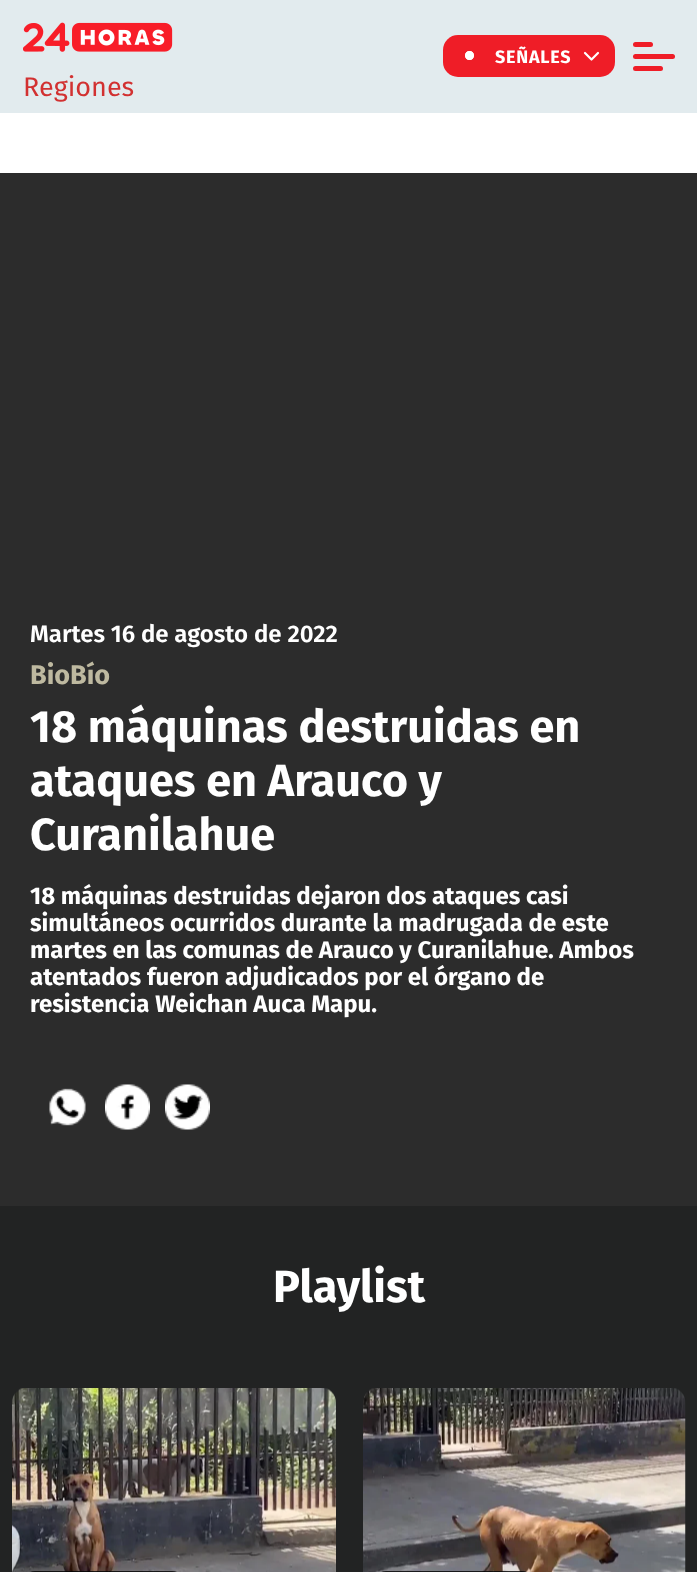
<svg xmlns="http://www.w3.org/2000/svg" xmlns:xlink="http://www.w3.org/1999/xlink" width="697" height="1572" viewBox="0 0 697 1572">
<style>
.cls-1{font:bold 18px Fira Sans;letter-spacing:0.75px;fill:#ffffff}
.cls-2{font:27px Fira Sans;fill:#d23131}
.cls-3{font:600 24px Fira Sans;fill:#ffffff}
.cls-4{font:bold 27px Fira Sans;fill:#beb9a0}
.cls-5{font:bold 45px Fira Sans;fill:#ffffff}
.cls-6{font:bold 24px Fira Sans;fill:#ffffff}
</style>
<rect width="100%" height="100%" fill="#ffffff"/>
<rect fill="#e2ebee" x="0" y="0" width="697" height="113"/>
<rect fill="#ef1d27" x="443" y="35" width="172" height="42" rx="15"/>
<circle fill="none" stroke="#ffffff" stroke-width="2" cx="469.5" cy="55.5" r="3.5"/>
<circle fill="#ffffff" stroke="#ffffff" stroke-width="2" cx="469.5" cy="55.5" r="3.5"/>
<path fill="none" stroke="#ffffff" stroke-width="2.2" stroke-linecap="round" stroke-linejoin="round" d="M585 53L591.5 59.5L598 53"/>
<rect fill="#ef1d27" x="633" y="54" width="42" height="5" rx="2.5"/>
<rect fill="#ef1d27" x="633" y="42" width="20" height="5" rx="2.5"/>
<rect fill="#ef1d27" x="633" y="66" width="30" height="5" rx="2.5"/>
<image xlink:href="image0.png" x="23" y="22" width="150" height="30"/>
<rect fill="#2c2c2c" x="0" y="173" width="697" height="1033"/>
<image xlink:href="image1.png" x="49" y="1088" width="37" height="38"/>
<image xlink:href="image2.png" x="105" y="1084" width="45" height="46"/>
<image xlink:href="image3.png" x="165" y="1084" width="45" height="46"/>
<rect fill="#222323" x="0" y="1206" width="697" height="366"/>
<image xlink:href="image4.png" x="12" y="1388" width="324" height="184"/>
<rect fill="#000000" fill-opacity="0.8" x="27" y="1571" width="153" height="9" rx="8"/>
<image xlink:href="image5.png" x="363" y="1388" width="323" height="184"/>
<rect fill="#000000" fill-opacity="0.8" x="378" y="1571" width="152" height="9" rx="8"/>
<text class="cls-1" x="495" y="63">SEÑALES</text>
<text class="cls-2" x="23" y="96">Regiones</text>
<text class="cls-3" x="30" y="642">Martes 16 de agosto de 2022</text>
<text class="cls-4" x="30" y="684">BioBío</text>
<text class="cls-5"><tspan x="30" y="742">18 máquinas destruidas en</tspan><tspan x="30" y="796">ataques en Arauco y</tspan><tspan x="30" y="850">Curanilahue</tspan></text>
<text class="cls-6"><tspan x="30" y="904">18 máquinas destruidas dejaron dos ataques casi</tspan><tspan x="30" y="931">simultáneos ocurridos durante la madrugada de este</tspan><tspan x="30" y="958">martes en las comunas de Arauco y Curanilahue. Ambos</tspan><tspan x="30" y="985">atentados fueron adjudicados por el órgano de</tspan><tspan x="30" y="1012">resistencia Weichan Auca Mapu.</tspan></text>
<text class="cls-5" x="273" y="1302">Playlist</text>
</svg>
